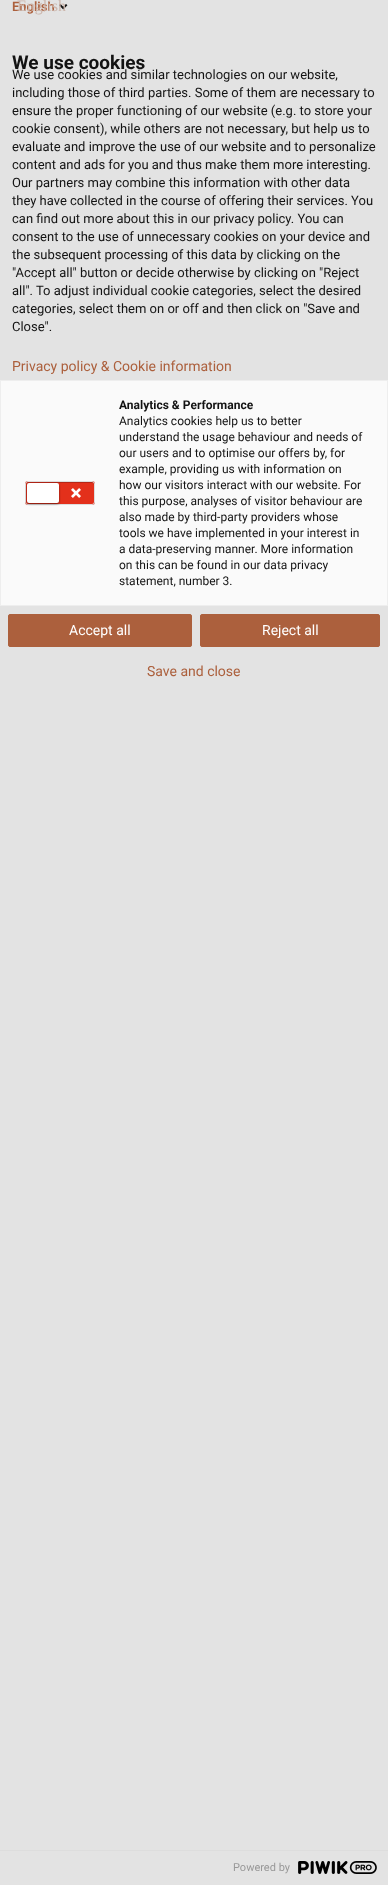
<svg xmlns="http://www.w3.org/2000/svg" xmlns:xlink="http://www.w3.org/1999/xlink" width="388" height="1885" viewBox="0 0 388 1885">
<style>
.cls-1{font:600 13px Roboto;fill:#ac603d}
.cls-2{font:16px Liberation Serif;fill:#ccb6ac}
.cls-3{font:bold 19px Roboto;fill:#131313}
.cls-4{font:13px Roboto;fill:#131313}
.cls-5{font:14px Roboto;fill:#ac603d}
.cls-6{font:bold 12px Roboto;fill:#131313}
.cls-7{font:12px Roboto;fill:#131313}
.cls-8{font:14px Roboto;fill:#ffffff}
.cls-9{font:11px Roboto;fill:#999999}
</style>
<rect width="100%" height="100%" fill="#e3e3e3"/>
<image xlink:href="image0.png" x="59" y="3" width="9" height="7"/>
<rect fill="#fafafa" stroke="#eeeeee" x="0.5" y="380.5" width="387" height="225"/>
<rect fill="#e3301b" x="25" y="481" width="70" height="24" rx="3"/>
<path fill="#b62616" d="M28 483H93L94 485C94 479 85 482 81 482H39C35 482 26 479 26 485C26 484 27 483 28 483Z"/>
<rect fill="none" stroke="#dddddd" x="25.5" y="481.5" width="69" height="23" rx="2.5"/>
<rect fill="#000000" fill-opacity="0.5" filter="blur(1px)" x="27" y="484" width="32" height="20" rx="2"/>
<rect fill="#ffffff" x="27" y="483" width="32" height="20" rx="2"/>
<image xlink:href="image1.png" x="71" y="488" width="10" height="10"/>
<rect fill="#ac603d" stroke="#ac603d" x="8.5" y="614.5" width="183" height="32" rx="1.5"/>
<rect fill="#ac603d" stroke="#ac603d" x="200.5" y="614.5" width="179" height="32" rx="1.5"/>
<rect fill="#dddddd" x="0" y="1850" width="388" height="1"/>
<image xlink:href="image2.png" x="298" y="1861" width="79" height="13"/>
<text class="cls-1" x="12" y="11">English</text>
<text class="cls-2" x="17" y="11">English</text>
<text class="cls-3" x="12" y="69">We use cookies</text>
<text class="cls-4"><tspan x="12" y="79">We use cookies and similar technologies on our website,</tspan><tspan x="12" y="97">including those of third parties. Some of them are necessary to</tspan><tspan x="12" y="115">ensure the proper functioning of our website (e.g. to store your</tspan><tspan x="12" y="133">cookie consent), while others are not necessary, but help us to</tspan><tspan x="12" y="151">evaluate and improve the use of our website and to personalize</tspan><tspan x="12" y="169">content and ads for you and thus make them more interesting.</tspan><tspan x="12" y="187">Our partners may combine this information with other data</tspan><tspan x="12" y="205">they have collected in the course of offering their services. You</tspan><tspan x="12" y="223">can find out more about this in our privacy policy. You can</tspan><tspan x="12" y="241">consent to the use of unnecessary cookies on your device and</tspan><tspan x="12" y="259">the subsequent processing of this data by clicking on the</tspan><tspan x="12" y="277">"Accept all" button or decide otherwise by clicking on "Reject</tspan><tspan x="12" y="295">all". To adjust individual cookie categories, select the desired</tspan><tspan x="12" y="313">categories, select them on or off and then click on "Save and</tspan><tspan x="12" y="331">Close".</tspan></text>
<text class="cls-5" x="12" y="371">Privacy policy &amp; Cookie information</text>
<text class="cls-6" x="119" y="409">Analytics &amp; Performance</text>
<text class="cls-7"><tspan x="119" y="425">Analytics cookies help us to better</tspan><tspan x="119" y="441">understand the usage behaviour and needs of</tspan><tspan x="119" y="457">our users and to optimise our offers by, for</tspan><tspan x="119" y="473">example, providing us with information on</tspan><tspan x="119" y="489">how our visitors interact with our website. For</tspan><tspan x="119" y="505">this purpose, analyses of visitor behaviour are</tspan><tspan x="119" y="521">also made by third-party providers whose</tspan><tspan x="119" y="537">tools we have implemented in your interest in</tspan><tspan x="119" y="553">a data-preserving manner. More information</tspan><tspan x="119" y="569">on this can be found in our data privacy</tspan><tspan x="119" y="585">statement, number 3.</tspan></text>
<text class="cls-8" x="69" y="635">Accept all</text>
<text class="cls-8" x="262" y="635">Reject all</text>
<text class="cls-5" x="147" y="676">Save and close</text>
<text class="cls-9" x="233" y="1871">Powered by</text>
</svg>
